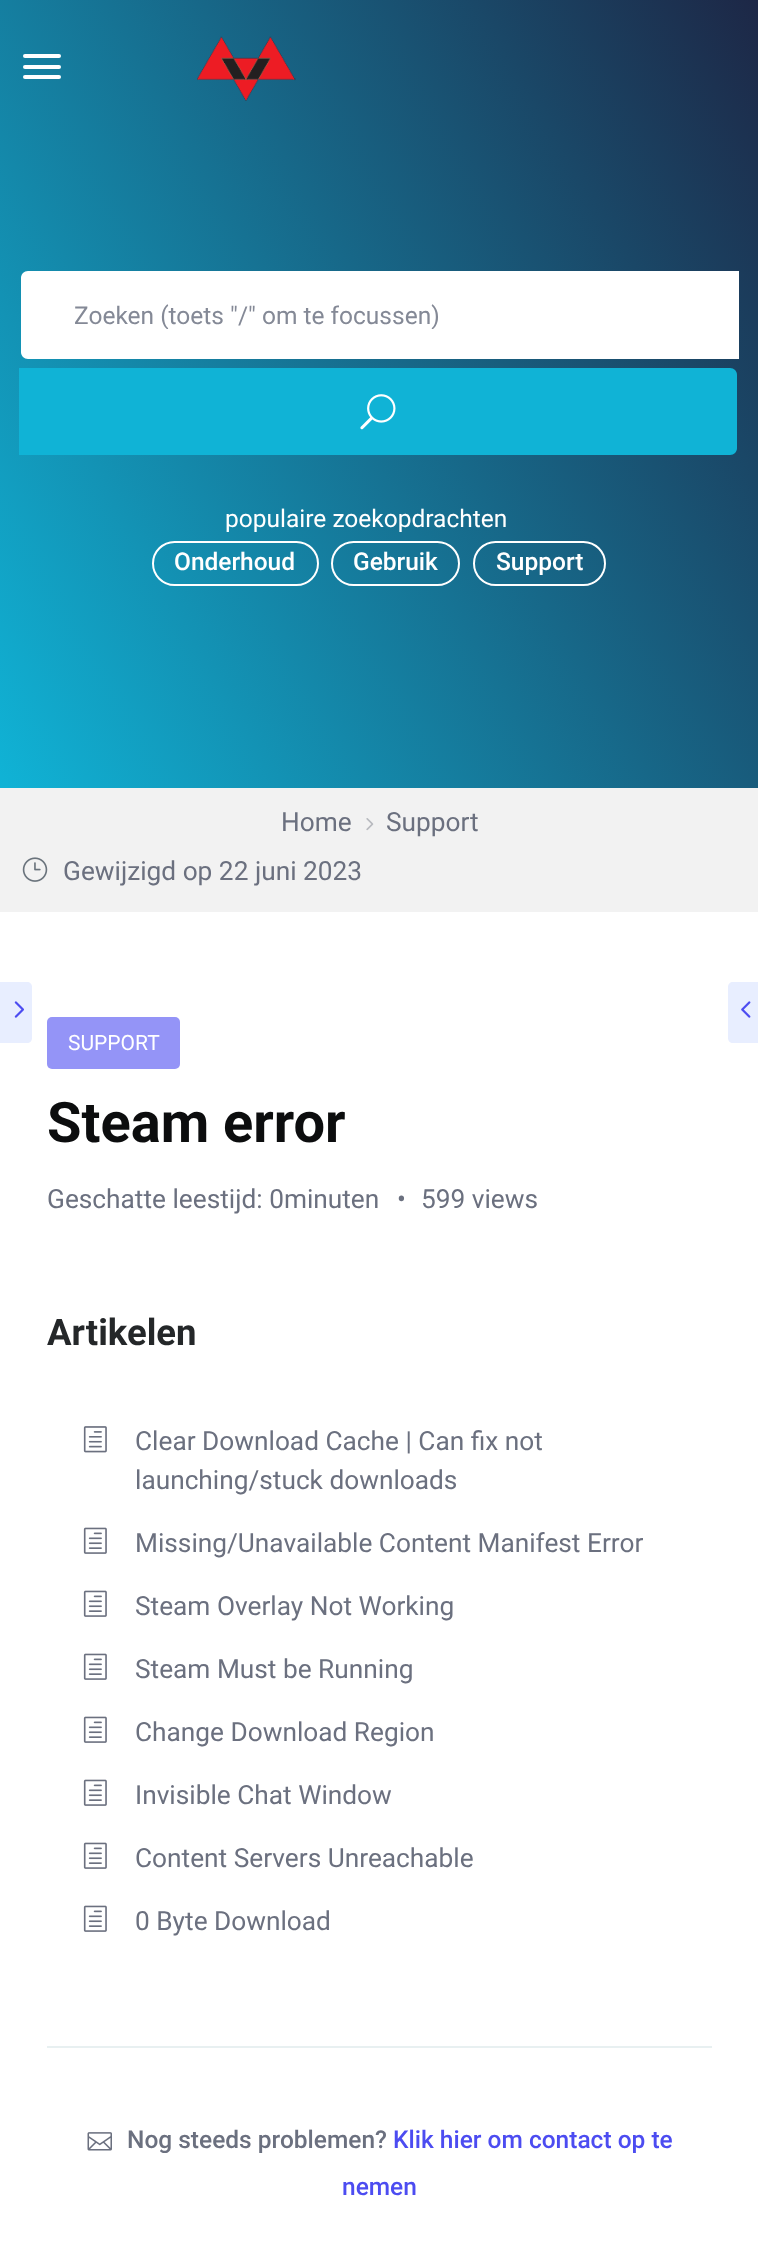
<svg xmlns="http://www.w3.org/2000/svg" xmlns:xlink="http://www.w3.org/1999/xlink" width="758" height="2264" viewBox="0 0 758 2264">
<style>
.cls-1{font:24.5px Roboto;fill:#848996}
.cls-2{font:24.5px Roboto;fill:#ffffff}
.cls-3{font:500 24.5px Roboto;fill:#ffffff}
.cls-4{font:26.25px Roboto;fill:#6b707f}
.cls-5{font:21px Roboto;fill:#ffffff}
.cls-6{font:bold 56px Roboto;fill:#0c0d0e}
.cls-7{font:bold 36.5px Roboto;fill:#242729}
.cls-8{font:500 24.5px Roboto;fill:#6b707f}
.cls-9{font:500 24.5px Roboto;fill:#4c4cf1}
</style>
<defs>
<linearGradient id="g1" gradientUnits="userSpaceOnUse" x1="-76" y1="657" x2="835" y2="131"><stop offset="0" stop-color="#10b3d6"/><stop offset="1" stop-color="#1d2746"/></linearGradient>
<clipPath id="clip1"><rect x="74" y="301" width="619" height="28"/></clipPath>
</defs>
<rect width="100%" height="100%" fill="#ffffff"/>
<rect fill="url(#g1)" x="0" y="0" width="758" height="788"/>
<rect fill="#ffffff" x="23" y="54" width="38" height="4" rx="2"/>
<rect fill="#ffffff" x="23" y="65" width="38" height="4" rx="2"/>
<rect fill="#ffffff" x="23" y="75" width="38" height="4" rx="2"/>
<image xlink:href="image0.png" x="197" y="36" width="99" height="65"/>
<path fill="#ffffff" d="M28 271H739V359H28C24 359 21 356 21 352V278C21 274 24 271 28 271Z"/>
<path fill="#10b3d6" d="M19 368H730C734 368 737 371 737 375V448C737 452 734 455 730 455H19Z"/>
<image xlink:href="image1.png" x="360" y="394" width="36" height="36"/>
<rect fill="none" stroke="#ffffff" stroke-width="2" x="153" y="542" width="165" height="43" rx="21.5"/>
<rect fill="none" stroke="#ffffff" stroke-width="2" x="332" y="542" width="127" height="43" rx="21.5"/>
<rect fill="none" stroke="#ffffff" stroke-width="2" x="474" y="542" width="131" height="43" rx="21.5"/>
<rect fill="#f2f2f2" x="0" y="788" width="758" height="124"/>
<image xlink:href="image2.png" x="366" y="818" width="8" height="13"/>
<image xlink:href="image3.png" x="22" y="857" width="26" height="25"/>
<path fill="#e8eeff" d="M0 982H27C30 982 32 984 32 987V1038C32 1041 30 1043 27 1043H0Z"/>
<image xlink:href="image4.png" x="14" y="1001" width="10" height="17"/>
<path fill="#e8eeff" d="M733 982H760V1043H733C730 1043 728 1041 728 1038V987C728 984 730 982 733 982Z"/>
<image xlink:href="image5.png" x="741" y="1001" width="10" height="17"/>
<rect fill="#9494f7" x="47" y="1017" width="133" height="52" rx="5"/>
<image xlink:href="image6.png" x="83" y="1426" width="24" height="27"/>
<image xlink:href="image7.png" x="83" y="1527" width="24" height="27"/>
<image xlink:href="image7.png" x="83" y="1590" width="24" height="27"/>
<image xlink:href="image7.png" x="83" y="1653" width="24" height="27"/>
<image xlink:href="image7.png" x="83" y="1716" width="24" height="27"/>
<image xlink:href="image7.png" x="83" y="1779" width="24" height="27"/>
<image xlink:href="image7.png" x="83" y="1842" width="24" height="27"/>
<image xlink:href="image7.png" x="83" y="1905" width="24" height="27"/>
<rect fill="#e8f0f1" x="47" y="2046" width="665" height="2"/>
<image xlink:href="image8.png" x="87" y="2132" width="25" height="19"/>
<g clip-path="url(#clip1)">
<text class="cls-1" x="74" y="324">Zoeken (toets "/" om te focussen)</text>
</g>
<text class="cls-2" x="225" y="527">populaire zoekopdrachten</text>
<text class="cls-3" x="174" y="570">Onderhoud</text>
<text class="cls-3" x="353" y="570">Gebruik</text>
<text class="cls-3" x="496" y="570">Support</text>
<text class="cls-4" x="281" y="831">Home</text>
<text class="cls-4" x="386" y="831">Support</text>
<text class="cls-4" x="63" y="880">Gewijzigd op 22 juni 2023</text>
<text class="cls-5" x="68" y="1050">SUPPORT</text>
<text class="cls-6" x="47" y="1142">Steam error</text>
<text class="cls-4" x="47" y="1208">Geschatte leestijd: 0minuten</text>
<text class="cls-4" x="397" y="1208">•</text>
<text class="cls-4" x="421" y="1208">599 views</text>
<text class="cls-7" x="47" y="1345">Artikelen</text>
<text class="cls-4"><tspan x="135" y="1450">Clear Download Cache | Can fix not</tspan><tspan x="135" y="1489">launching/stuck downloads</tspan></text>
<text class="cls-4" x="135" y="1552">Missing/Unavailable Content Manifest Error</text>
<text class="cls-4" x="135" y="1615">Steam Overlay Not Working</text>
<text class="cls-4" x="135" y="1678">Steam Must be Running</text>
<text class="cls-4" x="135" y="1741">Change Download Region</text>
<text class="cls-4" x="135" y="1804">Invisible Chat Window</text>
<text class="cls-4" x="135" y="1867">Content Servers Unreachable</text>
<text class="cls-4" x="135" y="1930">0 Byte Download</text>
<text class="cls-8" x="127" y="2148">Nog steeds problemen?</text>
<text class="cls-9" x="393" y="2148">Klik hier om contact op te</text>
<text class="cls-9" x="342" y="2195">nemen</text>
</svg>
